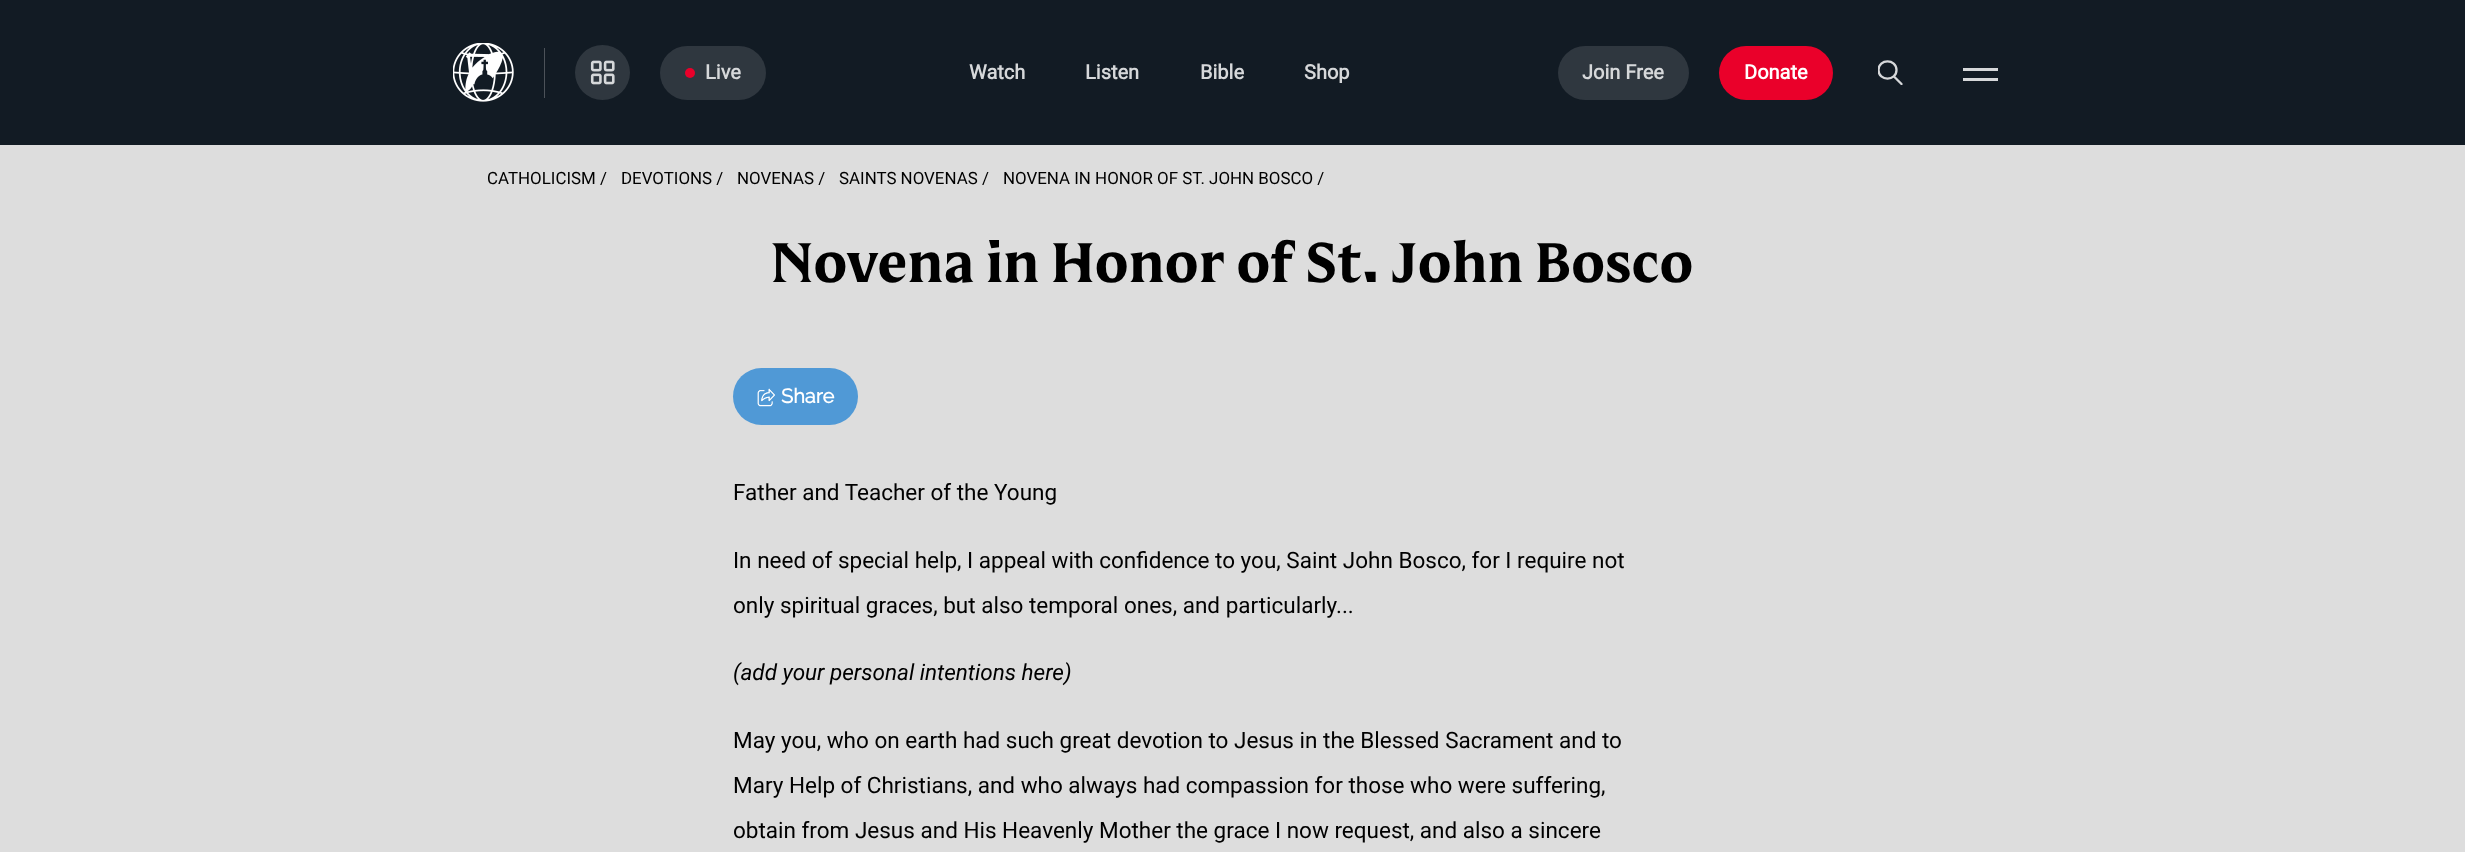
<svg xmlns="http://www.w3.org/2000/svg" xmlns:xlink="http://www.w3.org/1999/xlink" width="2465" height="852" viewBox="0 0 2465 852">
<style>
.cls-1{font:bold 20px Roboto;fill:#d6d8da}
.cls-2{font:bold 20px Roboto;fill:#ffffff}
.cls-3{font:16.9px Roboto;fill:#000000}
.cls-4{font:bold 56.25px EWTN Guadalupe;fill:#000000}
.cls-5{font:bold 20px Raleway;fill:#ffffff}
.cls-6{font:22.5px Roboto;fill:#000000}
.cls-7{font:italic 22.5px Roboto;fill:#000000}
</style>
<defs>
<clipPath id="clip1"><rect x="1878" y="60" width="25" height="25"/></clipPath>
</defs>
<rect width="100%" height="100%" fill="#dddddd"/>
<rect fill="#121b24" x="0" y="0" width="2465" height="145"/>
<image xlink:href="image0.png" x="453" y="43" width="61" height="59"/>
<rect fill="#4c5259" x="544" y="48" width="1" height="50"/>
<circle fill="#2f373f" cx="602.5" cy="72.5" r="27.5"/>
<image xlink:href="image1.png" x="590" y="60" width="25" height="25"/>
<rect fill="#2f373f" x="660" y="46" width="106" height="54" rx="27"/>
<circle fill="#ea002a" cx="690" cy="73" r="5"/>
<rect fill="#2f373f" x="1558" y="46" width="131" height="54" rx="27"/>
<rect fill="#ea002a" x="1719" y="46" width="114" height="54" rx="27"/>
<g clip-path="url(#clip1)">
<path fill="none" stroke="#d6d8da" stroke-width="2.3" stroke-linecap="round" stroke-linejoin="round" d="M1901.5 84L1894 76.5M1896.5 70C1896.5 81.5 1878.5 81.5 1878.5 70C1878.5 58.5 1896.5 58.5 1896.5 70Z"/>
</g>
<rect fill="#d6d8da" x="1963" y="68" width="35" height="3"/>
<rect fill="#d6d8da" x="1963" y="78" width="35" height="3"/>
<rect fill="#5099d6" x="733" y="368" width="125" height="57" rx="28.5"/>
<image xlink:href="image2.png" x="757" y="388" width="18" height="19"/>
<text class="cls-1" x="705" y="79">Live</text>
<text class="cls-1" x="969" y="79">Watch</text>
<text class="cls-1" x="1085" y="79">Listen</text>
<text class="cls-1" x="1200" y="79">Bible</text>
<text class="cls-1" x="1304" y="79">Shop</text>
<text class="cls-1" x="1582" y="79">Join Free</text>
<text class="cls-2" x="1744" y="79">Donate</text>
<text class="cls-3" x="487" y="184">CATHOLICISM /</text>
<text class="cls-3" x="621" y="184">DEVOTIONS /</text>
<text class="cls-3" x="737" y="184">NOVENAS /</text>
<text class="cls-3" x="839" y="184">SAINTS NOVENAS /</text>
<text class="cls-3" x="1003" y="184">NOVENA IN HONOR OF ST. JOHN BOSCO /</text>
<text class="cls-4" x="771" y="282">Novena in Honor of St. John Bosco</text>
<text class="cls-5" x="781" y="403">Share</text>
<text class="cls-6" x="733" y="500">Father and Teacher of the Young</text>
<text class="cls-6" x="733" y="568">In need of special help, I appeal with confidence to you, Saint John Bosco, for I require not</text>
<text class="cls-6" x="733" y="613">only spiritual graces, but also temporal ones, and particularly...</text>
<text class="cls-7" x="733" y="680">(add your personal intentions here)</text>
<text class="cls-6" x="733" y="748">May you, who on earth had such great devotion to Jesus in the Blessed Sacrament and to</text>
<text class="cls-6" x="733" y="793">Mary Help of Christians, and who always had compassion for those who were suffering,</text>
<text class="cls-6" x="733" y="838">obtain from Jesus and His Heavenly Mother the grace I now request, and also a sincere</text>
</svg>
